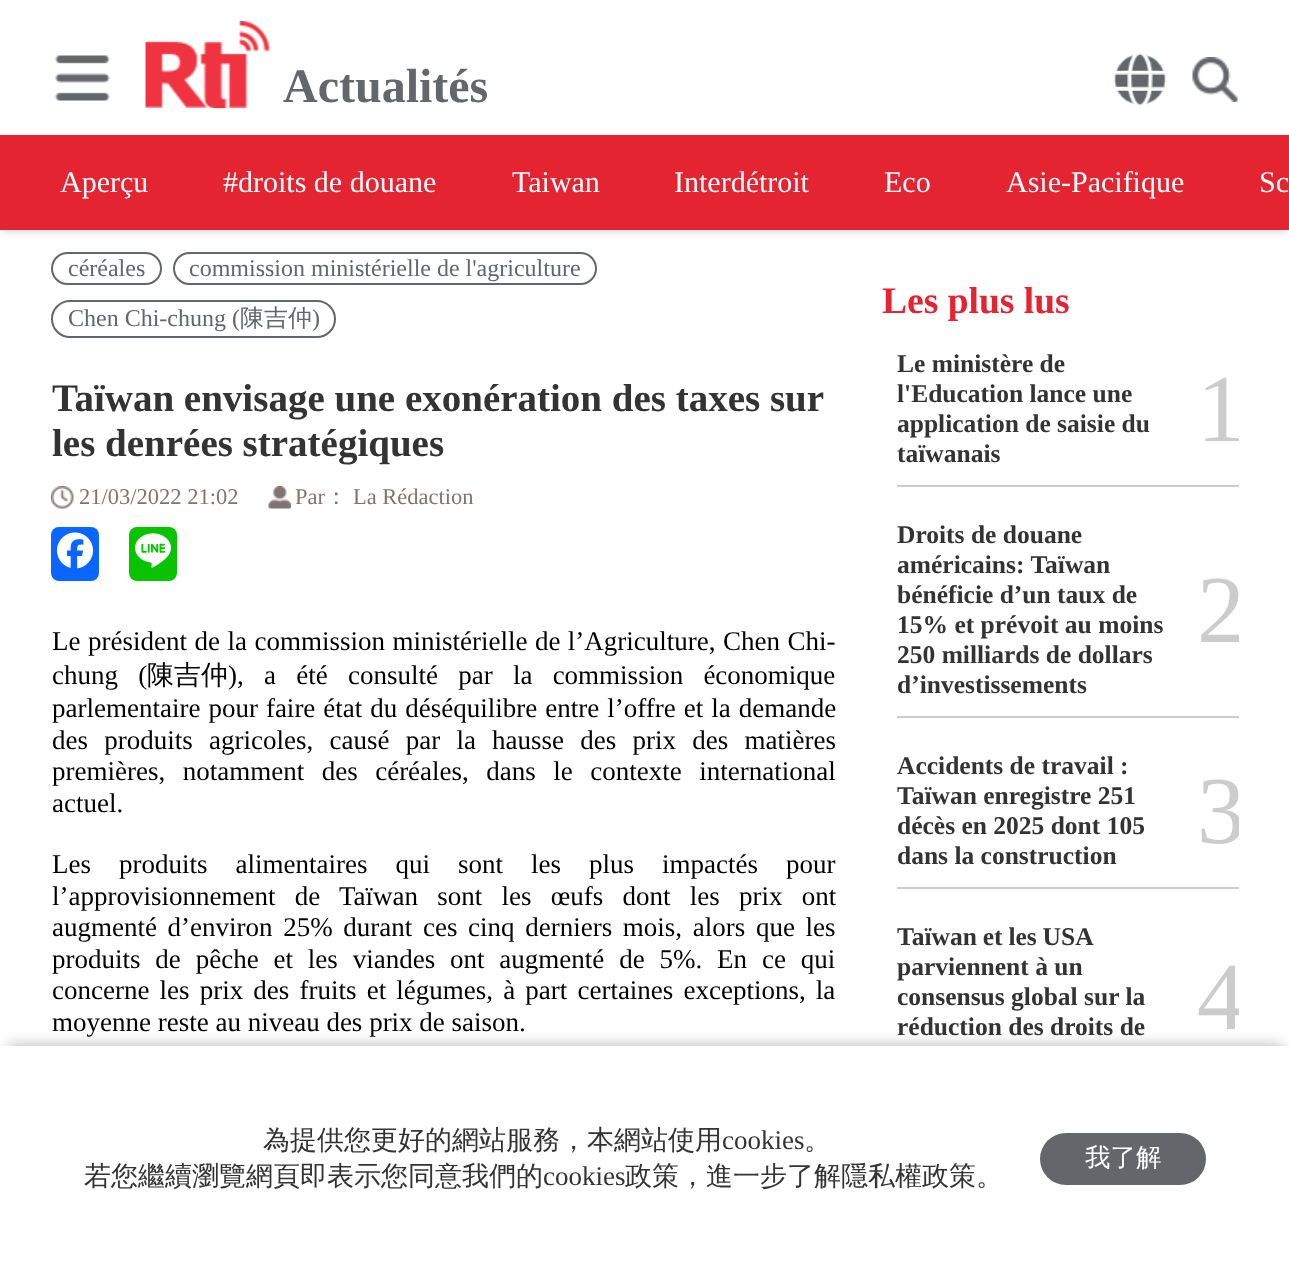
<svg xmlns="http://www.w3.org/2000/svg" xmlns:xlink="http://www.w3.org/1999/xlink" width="1289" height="1270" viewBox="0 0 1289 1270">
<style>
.cls-1{font:bold 48px Liberation Serif;fill:#63666a}
.cls-2{font:30px Liberation Serif;fill:#ffffff}
.cls-3{font:24px Liberation Serif;fill:#63666a}
.cls-4{font:500 24px WenQuanYi Zen Hei;fill:#63666a}
.cls-5{font:bold 39px Liberation Serif;fill:#333333}
.cls-6{font:22.5px Liberation Serif;fill:#827373}
.cls-7{font:500 22.5px WenQuanYi Zen Hei;fill:#827373}
.cls-8{font:27px Liberation Serif;fill:#000000}
.cls-9{font:500 27px WenQuanYi Zen Hei;fill:#000000}
.cls-10{font:bold 37.5px Liberation Serif;fill:#e52431}
.cls-11{font:bold 25.5px Liberation Serif;fill:#333333}
.cls-12{font:96px Liberation Serif;fill:#cccccc}
.cls-13{font:500 27px WenQuanYi Zen Hei;fill:#333333}
.cls-14{font:27px Liberation Serif;fill:#333333}
.cls-15{font:500 25.5px WenQuanYi Zen Hei;fill:#ffffff}
</style>
<defs>
<clipPath id="clip1"><rect x="897" y="350" width="342" height="135"/></clipPath>
<clipPath id="clip2"><rect x="897" y="521" width="342" height="195"/></clipPath>
<clipPath id="clip3"><rect x="897" y="752" width="342" height="135"/></clipPath>
<clipPath id="clip4"><rect x="897" y="923" width="342" height="165"/></clipPath>
</defs>
<rect width="100%" height="100%" fill="#ffffff"/>
<rect fill="#000000" fill-opacity="0.2" filter="blur(4px)" x="3" y="8" width="1284" height="223"/>
<rect fill="#ffffff" x="0" y="1" width="1289" height="134"/>
<image xlink:href="image0.png" x="54" y="55" width="57" height="46"/>
<image xlink:href="image1.png" x="145" y="21" width="126" height="87"/>
<image xlink:href="image2.png" x="1113" y="53" width="54" height="53"/>
<image xlink:href="image3.png" x="1192" y="57" width="46" height="45"/>
<rect fill="#e52431" x="0" y="135" width="1289" height="95"/>
<rect fill="none" stroke="#63666a" stroke-width="2" x="52" y="253" width="109" height="31" rx="15.5"/>
<rect fill="none" stroke="#63666a" stroke-width="2" x="174" y="253" width="422" height="31" rx="15.5"/>
<rect fill="none" stroke="#63666a" stroke-width="2" x="52" y="301" width="283" height="36" rx="18"/>
<image xlink:href="image4.png" x="51" y="486" width="23" height="23"/>
<image xlink:href="image5.png" x="268" y="486" width="23" height="23"/>
<rect fill="#0a66ff" x="51" y="527" width="48" height="54" rx="8"/>
<image xlink:href="image6.png" x="57" y="532" width="36" height="37"/>
<rect fill="#09c301" x="129" y="527" width="48" height="54" rx="8"/>
<image xlink:href="image7.png" x="135" y="533" width="36" height="35"/>
<rect fill="#cccccc" x="897" y="485" width="342" height="2"/>
<rect fill="#cccccc" x="897" y="716" width="342" height="2"/>
<rect fill="#cccccc" x="897" y="887" width="342" height="2"/>
<rect fill="#000000" fill-opacity="0.3" filter="blur(7.5px)" x="8" y="1046" width="1275" height="210"/>
<rect fill="#ffffff" x="0" y="1046" width="1289" height="224"/>
<rect fill="#63666a" x="1040" y="1133" width="166" height="52" rx="26"/>
<text class="cls-1" x="283" y="102">Actualités</text>
<text class="cls-2" x="60" y="192">Aperçu</text>
<text class="cls-2" x="223" y="192">#droits de douane</text>
<text class="cls-2" x="512" y="192">Taiwan</text>
<text class="cls-2" x="674" y="192">Interdétroit</text>
<text class="cls-2" x="884" y="192">Eco</text>
<text class="cls-2" x="1006" y="192">Asie-Pacifique</text>
<text class="cls-2" x="1259" y="192">Sc</text>
<text class="cls-3" x="68" y="276">céréales</text>
<text class="cls-3" x="189" y="276">commission ministérielle de l'agriculture</text>
<text class="cls-3" x="68" y="326">Chen Chi-chung (</text>
<text class="cls-4" x="240" y="326">陳吉仲</text>
<text class="cls-3" x="312" y="326">)</text>
<text class="cls-5"><tspan x="52" y="411">Taïwan envisage une exonération des taxes sur</tspan><tspan x="52" y="456">les denrées stratégiques</tspan></text>
<text class="cls-6" x="79" y="504">21/03/2022 21:02</text>
<text class="cls-6" x="295" y="504">Par</text>
<text class="cls-7" x="325" y="504">：</text>
<text class="cls-6" x="353" y="504">La Rédaction</text>
<text class="cls-8"><tspan x="52" y="650" word-spacing="0.75">Le président de la commission ministérielle de l’Agriculture, Chen Chi-</tspan><tspan x="52" y="684" word-spacing="13.5">chung (</tspan></text>
<text class="cls-9" x="147" y="684">陳吉仲</text>
<text class="cls-8" x="228" y="684" word-spacing="13.5">), a été consulté par la commission économique</text>
<text class="cls-8"><tspan x="52" y="717" word-spacing="1.25">parlementaire pour faire état du déséquilibre entre l’offre et la demande</tspan><tspan x="52" y="749" word-spacing="9.5">des produits agricoles, causé par la hausse des prix des matières</tspan><tspan x="52" y="780" word-spacing="10.75">premières, notamment des céréales, dans le contexte international</tspan><tspan x="52" y="812">actuel.</tspan></text>
<text class="cls-8"><tspan x="52" y="873" word-spacing="21.25">Les produits alimentaires qui sont les plus impactés pour</tspan><tspan x="52" y="905" word-spacing="12.5">l’approvisionnement de Taïwan sont les œufs dont les prix ont</tspan><tspan x="52" y="936" word-spacing="3.9">augmenté d’environ 25% durant ces cinq derniers mois, alors que les</tspan><tspan x="52" y="968" word-spacing="8.1">produits de pêche et les viandes ont augmenté de 5%. En ce qui</tspan><tspan x="52" y="999" word-spacing="3.4">concerne les prix des fruits et légumes, à part certaines exceptions, la</tspan><tspan x="52" y="1031">moyenne reste au niveau des prix de saison.</tspan></text>
<text class="cls-10" x="882" y="313">Les plus lus</text>
<text class="cls-11"><tspan x="897" y="372">Le ministère de</tspan><tspan x="897" y="402">l'Education lance une</tspan><tspan x="897" y="432">application de saisie du</tspan><tspan x="897" y="462">taïwanais</tspan></text>
<g clip-path="url(#clip1)">
<text class="cls-12" x="1197" y="441">1</text>
</g>
<text class="cls-11"><tspan x="897" y="543">Droits de douane</tspan><tspan x="897" y="573">américains: Taïwan</tspan><tspan x="897" y="603">bénéficie d’un taux de</tspan><tspan x="897" y="633">15% et prévoit au moins</tspan><tspan x="897" y="663">250 milliards de dollars</tspan><tspan x="897" y="693">d’investissements</tspan></text>
<g clip-path="url(#clip2)">
<text class="cls-12" x="1197" y="642">2</text>
</g>
<text class="cls-11"><tspan x="897" y="774">Accidents de travail :</tspan><tspan x="897" y="804">Taïwan enregistre 251</tspan><tspan x="897" y="834">décès en 2025 dont 105</tspan><tspan x="897" y="864">dans la construction</tspan></text>
<g clip-path="url(#clip3)">
<text class="cls-12" x="1197" y="843">3</text>
</g>
<text class="cls-11"><tspan x="897" y="945" word-spacing="-0.5">Taïwan et les USA</tspan><tspan x="897" y="975">parviennent à un</tspan><tspan x="897" y="1005">consensus global sur la</tspan><tspan x="897" y="1035">réduction des droits de</tspan></text>
<g clip-path="url(#clip4)">
<text class="cls-12" x="1197" y="1029">4</text>
</g>
<text class="cls-13" x="263" y="1149">為提供您更好的網站服務，本網站使用</text>
<text class="cls-14" x="722" y="1149">cookies</text>
<text class="cls-13" x="804" y="1149">。</text>
<text class="cls-13" x="84" y="1185">若您繼續瀏覽網頁即表示您同意我們的</text>
<text class="cls-14" x="543" y="1185">cookies</text>
<text class="cls-13" x="625" y="1185">政策，進一步了解隱私權政策。</text>
<text class="cls-15" x="1085" y="1166">我了解</text>
</svg>
